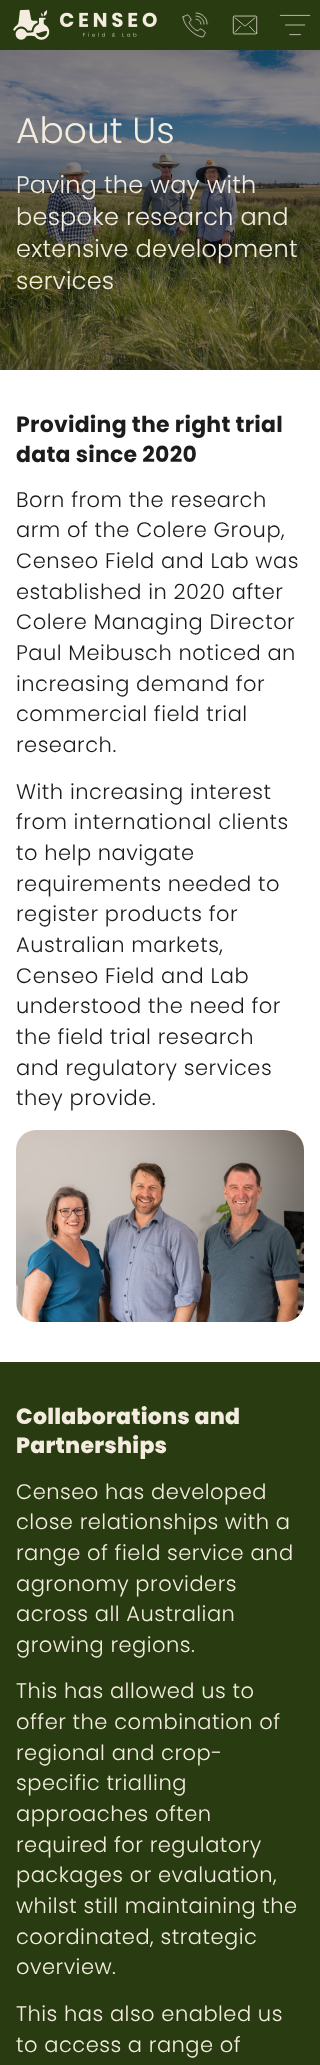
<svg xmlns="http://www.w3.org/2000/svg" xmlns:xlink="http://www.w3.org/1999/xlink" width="320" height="2065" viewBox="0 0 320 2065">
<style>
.cls-1{font:300 36px Poppins;fill:#f4eddf}
.cls-2{font:300 24px Poppins;letter-spacing:0.25px;fill:#f4eddf}
.cls-3{font:bold 22px Poppins;letter-spacing:0.25px;fill:#1c1c1c}
.cls-4{font:300 21px Poppins;letter-spacing:0.5px;fill:#1c1c1c}
.cls-5{font:800 22px Poppins;letter-spacing:0.25px;fill:#f4eddf}
.cls-6{font:300 21px Poppins;letter-spacing:0.5px;fill:#f4eddf}
</style>
<rect width="100%" height="100%" fill="#ffffff"/>
<rect fill="#293c11" x="0" y="0" width="320" height="50"/>
<image xlink:href="image0.png" x="13" y="9" width="144" height="31"/>
<image xlink:href="image1.png" x="182" y="12" width="27" height="26"/>
<image xlink:href="image2.png" x="232" y="15" width="26" height="20"/>
<image xlink:href="image3.png" x="279" y="14" width="32" height="22"/>
<image xlink:href="image4.png" x="0" y="50" width="320" height="320"/>
<image xlink:href="image5.png" x="16" y="1130" width="288" height="192"/>
<rect fill="#293c11" x="0" y="1362" width="320" height="703"/>
<text class="cls-1" x="16" y="143">About Us</text>
<text class="cls-2"><tspan x="16" y="193">Paving the way with</tspan><tspan x="16" y="225">bespoke research and</tspan><tspan x="16" y="257">extensive development</tspan><tspan x="16" y="289">services</tspan></text>
<text class="cls-3"><tspan x="16" y="432">Providing the right trial</tspan><tspan x="16" y="462">data since 2020</tspan></text>
<text class="cls-4"><tspan x="16" y="507">Born from the research</tspan><tspan x="16" y="537">arm of the Colere Group,</tspan><tspan x="16" y="568">Censeo Field and Lab was</tspan><tspan x="16" y="599">established in 2020 after</tspan><tspan x="16" y="629">Colere Managing Director</tspan><tspan x="16" y="660">Paul Meibusch noticed an</tspan><tspan x="16" y="691">increasing demand for</tspan><tspan x="16" y="721">commercial field trial</tspan><tspan x="16" y="752">research.</tspan></text>
<text class="cls-4"><tspan x="16" y="799">With increasing interest</tspan><tspan x="16" y="829">from international clients</tspan><tspan x="16" y="860">to help navigate</tspan><tspan x="16" y="891">requirements needed to</tspan><tspan x="16" y="921">register products for</tspan><tspan x="16" y="952">Australian markets,</tspan><tspan x="16" y="983">Censeo Field and Lab</tspan><tspan x="16" y="1013">understood the need for</tspan><tspan x="16" y="1044">the field trial research</tspan><tspan x="16" y="1075">and regulatory services</tspan><tspan x="16" y="1105">they provide.</tspan></text>
<text class="cls-5"><tspan x="16" y="1424">Collaborations and</tspan><tspan x="16" y="1453">Partnerships</tspan></text>
<text class="cls-6"><tspan x="16" y="1499">Censeo has developed</tspan><tspan x="16" y="1529">close relationships with a</tspan><tspan x="16" y="1560">range of field service and</tspan><tspan x="16" y="1591">agronomy providers</tspan><tspan x="16" y="1621">across all Australian</tspan><tspan x="16" y="1652">growing regions.</tspan></text>
<text class="cls-6"><tspan x="16" y="1698">This has allowed us to</tspan><tspan x="16" y="1729">offer the combination of</tspan><tspan x="16" y="1760">regional and crop-</tspan><tspan x="16" y="1790">specific trialling</tspan><tspan x="16" y="1821">approaches often</tspan><tspan x="16" y="1852">required for regulatory</tspan><tspan x="16" y="1882">packages or evaluation,</tspan><tspan x="16" y="1913">whilst still maintaining the</tspan><tspan x="16" y="1944">coordinated, strategic</tspan><tspan x="16" y="1974">overview.</tspan></text>
<text class="cls-6"><tspan x="16" y="2021">This has also enabled us</tspan><tspan x="16" y="2052">to access a range of</tspan></text>
</svg>
